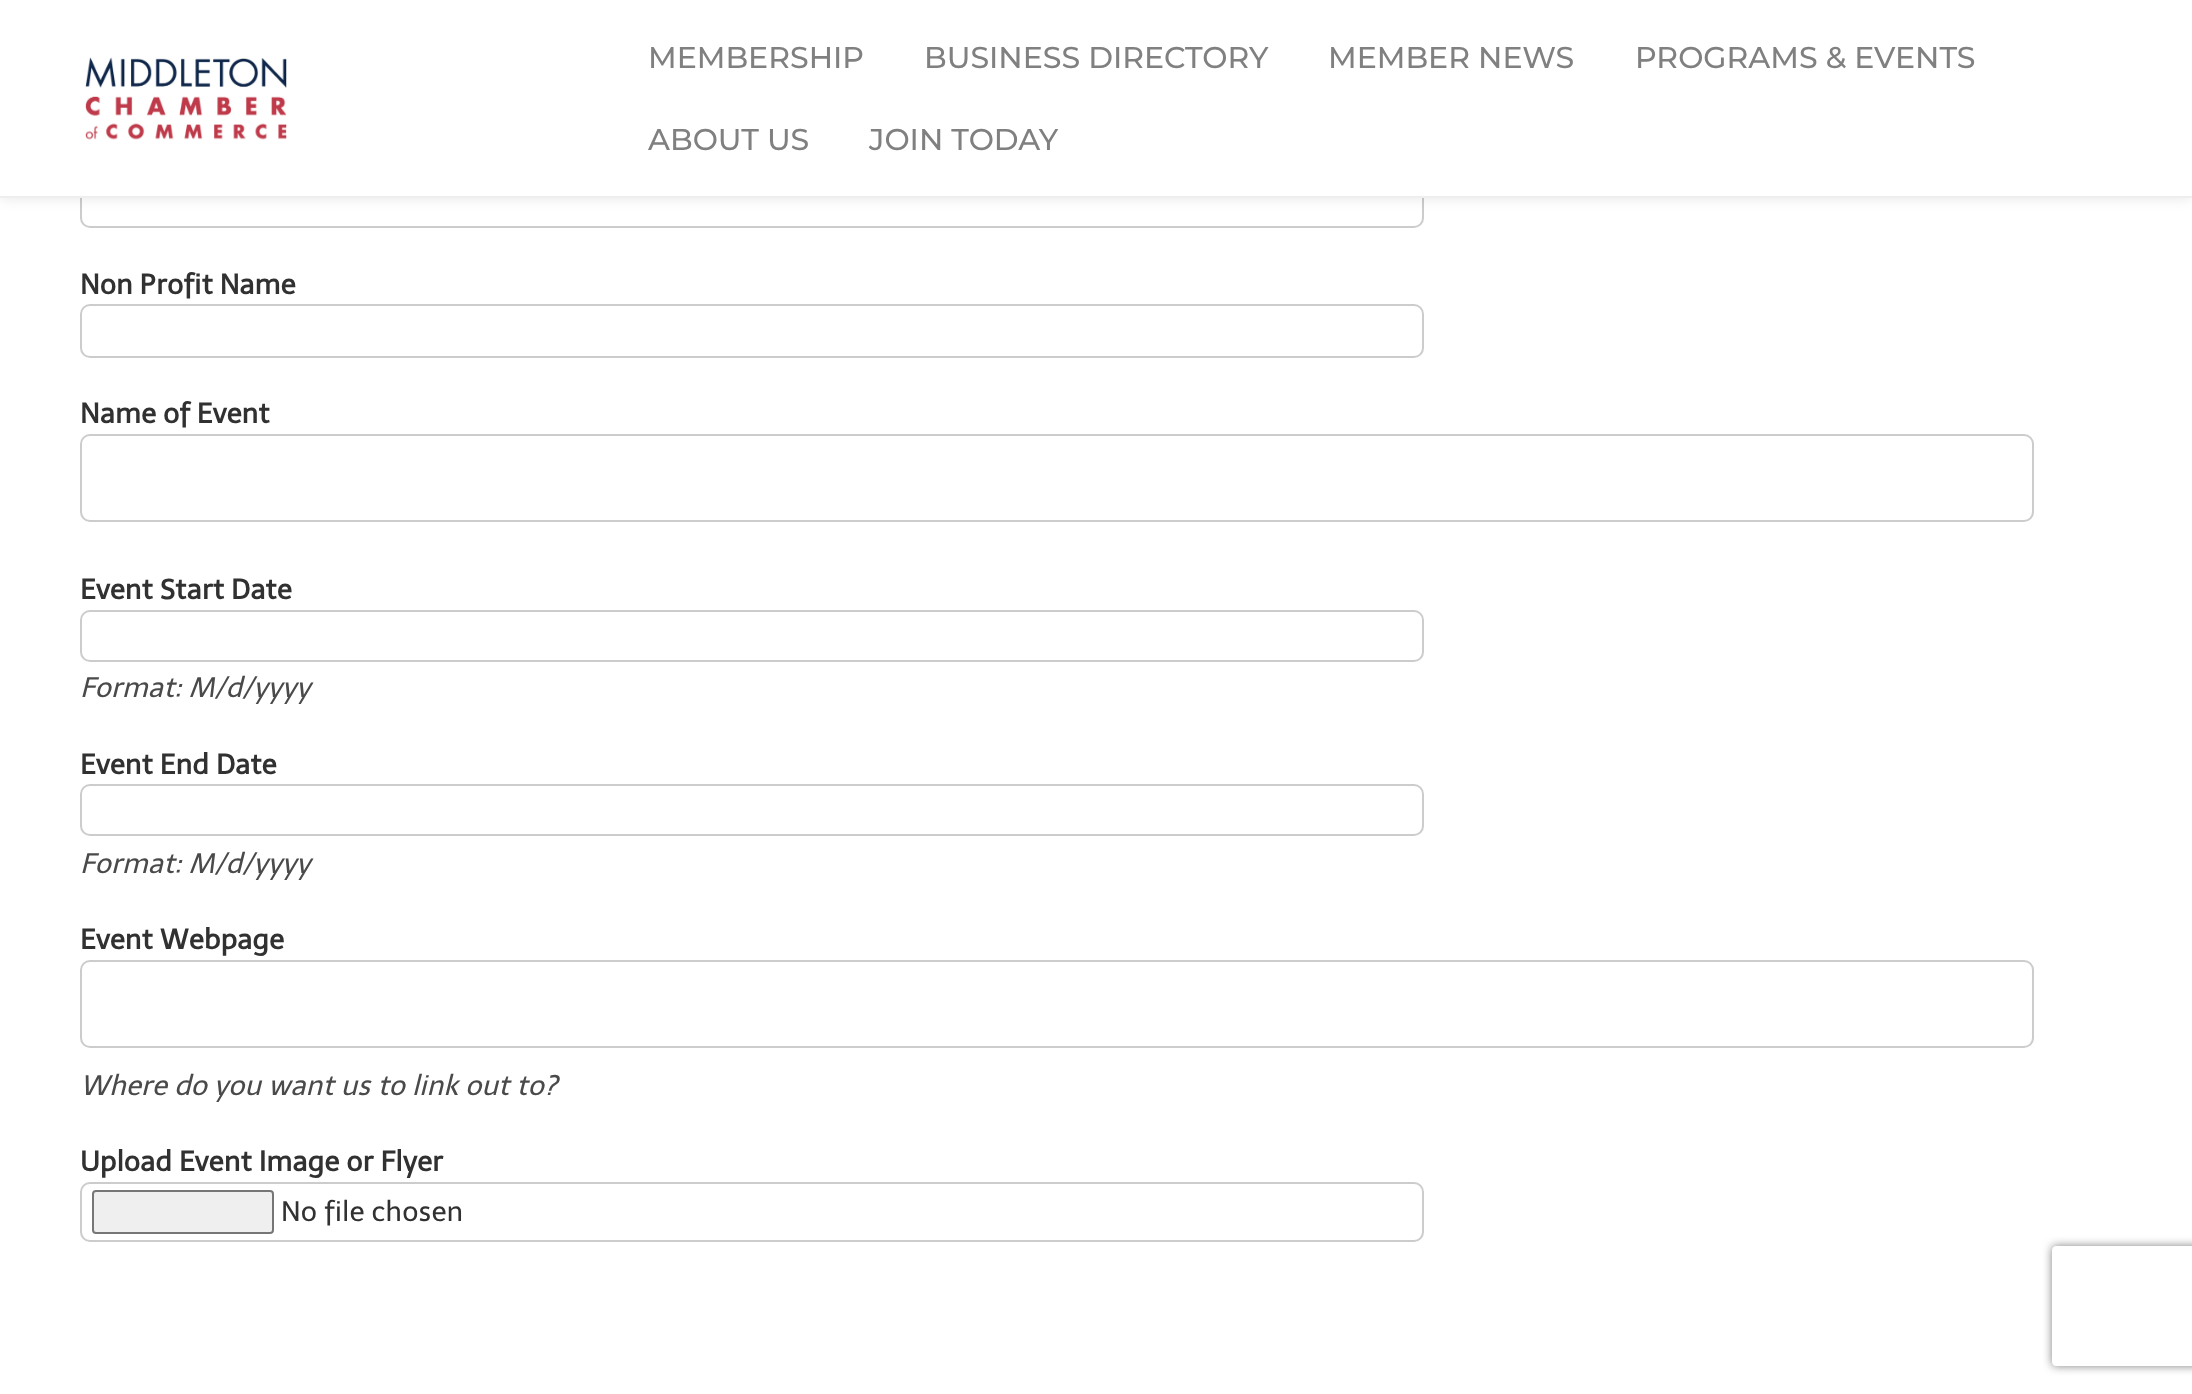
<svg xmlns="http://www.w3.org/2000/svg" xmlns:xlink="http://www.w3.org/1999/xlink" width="2192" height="1394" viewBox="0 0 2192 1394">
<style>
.cls-1{font:500 30px Montserrat;fill:#808080}
.cls-2{font:bold 28px Telex;fill:#313131}
.cls-3{font:italic 28px Telex;fill:#4a4a4a}
.cls-4{font:28px Telex;fill:#313131}
</style>
<defs>
<clipPath id="clip1"><path d="M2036 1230H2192V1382H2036ZM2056 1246H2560C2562 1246 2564 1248 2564 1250V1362C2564 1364 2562 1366 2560 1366H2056C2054 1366 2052 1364 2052 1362V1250C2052 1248 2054 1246 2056 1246Z" clip-rule="evenodd"/></clipPath>
</defs>
<rect width="100%" height="100%" fill="#ffffff"/>
<rect fill="none" stroke="#cccccc" stroke-width="2" x="81" y="177" width="1342" height="50" rx="9"/>
<rect fill="#000000" fill-opacity="0.1" filter="blur(7px)" x="0" y="0" width="2192" height="198"/>
<rect fill="#ffffff" x="0" y="0" width="2192" height="196"/>
<rect fill="#eeeeee" x="0" y="196" width="2192" height="2"/>
<image xlink:href="image0.png" x="85" y="57" width="202" height="83"/>
<rect fill="none" stroke="#cccccc" stroke-width="2" x="81" y="305" width="1342" height="52" rx="9"/>
<rect fill="none" stroke="#cccccc" stroke-width="2" x="81" y="435" width="1952" height="86" rx="9"/>
<rect fill="none" stroke="#cccccc" stroke-width="2" x="81" y="611" width="1342" height="50" rx="9"/>
<rect fill="none" stroke="#cccccc" stroke-width="2" x="81" y="785" width="1342" height="50" rx="9"/>
<rect fill="none" stroke="#cccccc" stroke-width="2" x="81" y="961" width="1952" height="86" rx="9"/>
<rect fill="none" stroke="#cccccc" stroke-width="2" x="81" y="1183" width="1342" height="58" rx="9"/>
<rect fill="#efefef" stroke="#767676" stroke-width="2" x="93" y="1191" width="180" height="42" rx="3"/>
<g clip-path="url(#clip1)">
<rect fill="#808080" filter="blur(5px)" x="2052" y="1246" width="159" height="120" rx="4"/>
</g>
<text class="cls-1" x="648" y="68">MEMBERSHIP</text>
<text class="cls-1" x="924" y="68">BUSINESS DIRECTORY</text>
<text class="cls-1" x="1328" y="68">MEMBER NEWS</text>
<text class="cls-1" x="1635" y="68">PROGRAMS &amp; EVENTS</text>
<text class="cls-1" x="648" y="150">ABOUT US</text>
<text class="cls-1" x="869" y="150">JOIN TODAY</text>
<text class="cls-2" x="80" y="294">Non Profit Name</text>
<text class="cls-2" x="80" y="423">Name of Event</text>
<text class="cls-2" x="80" y="599">Event Start Date</text>
<text class="cls-3" x="80" y="697">Format: M/d/yyyy</text>
<text class="cls-2" x="80" y="774">Event End Date</text>
<text class="cls-3" x="80" y="873">Format: M/d/yyyy</text>
<text class="cls-2" x="80" y="949">Event Webpage</text>
<text class="cls-3" x="80" y="1095">Where do you want us to link out to?</text>
<text class="cls-2" x="80" y="1171">Upload Event Image or Flyer</text>
<text class="cls-4" x="281" y="1221">No file chosen</text>
</svg>
